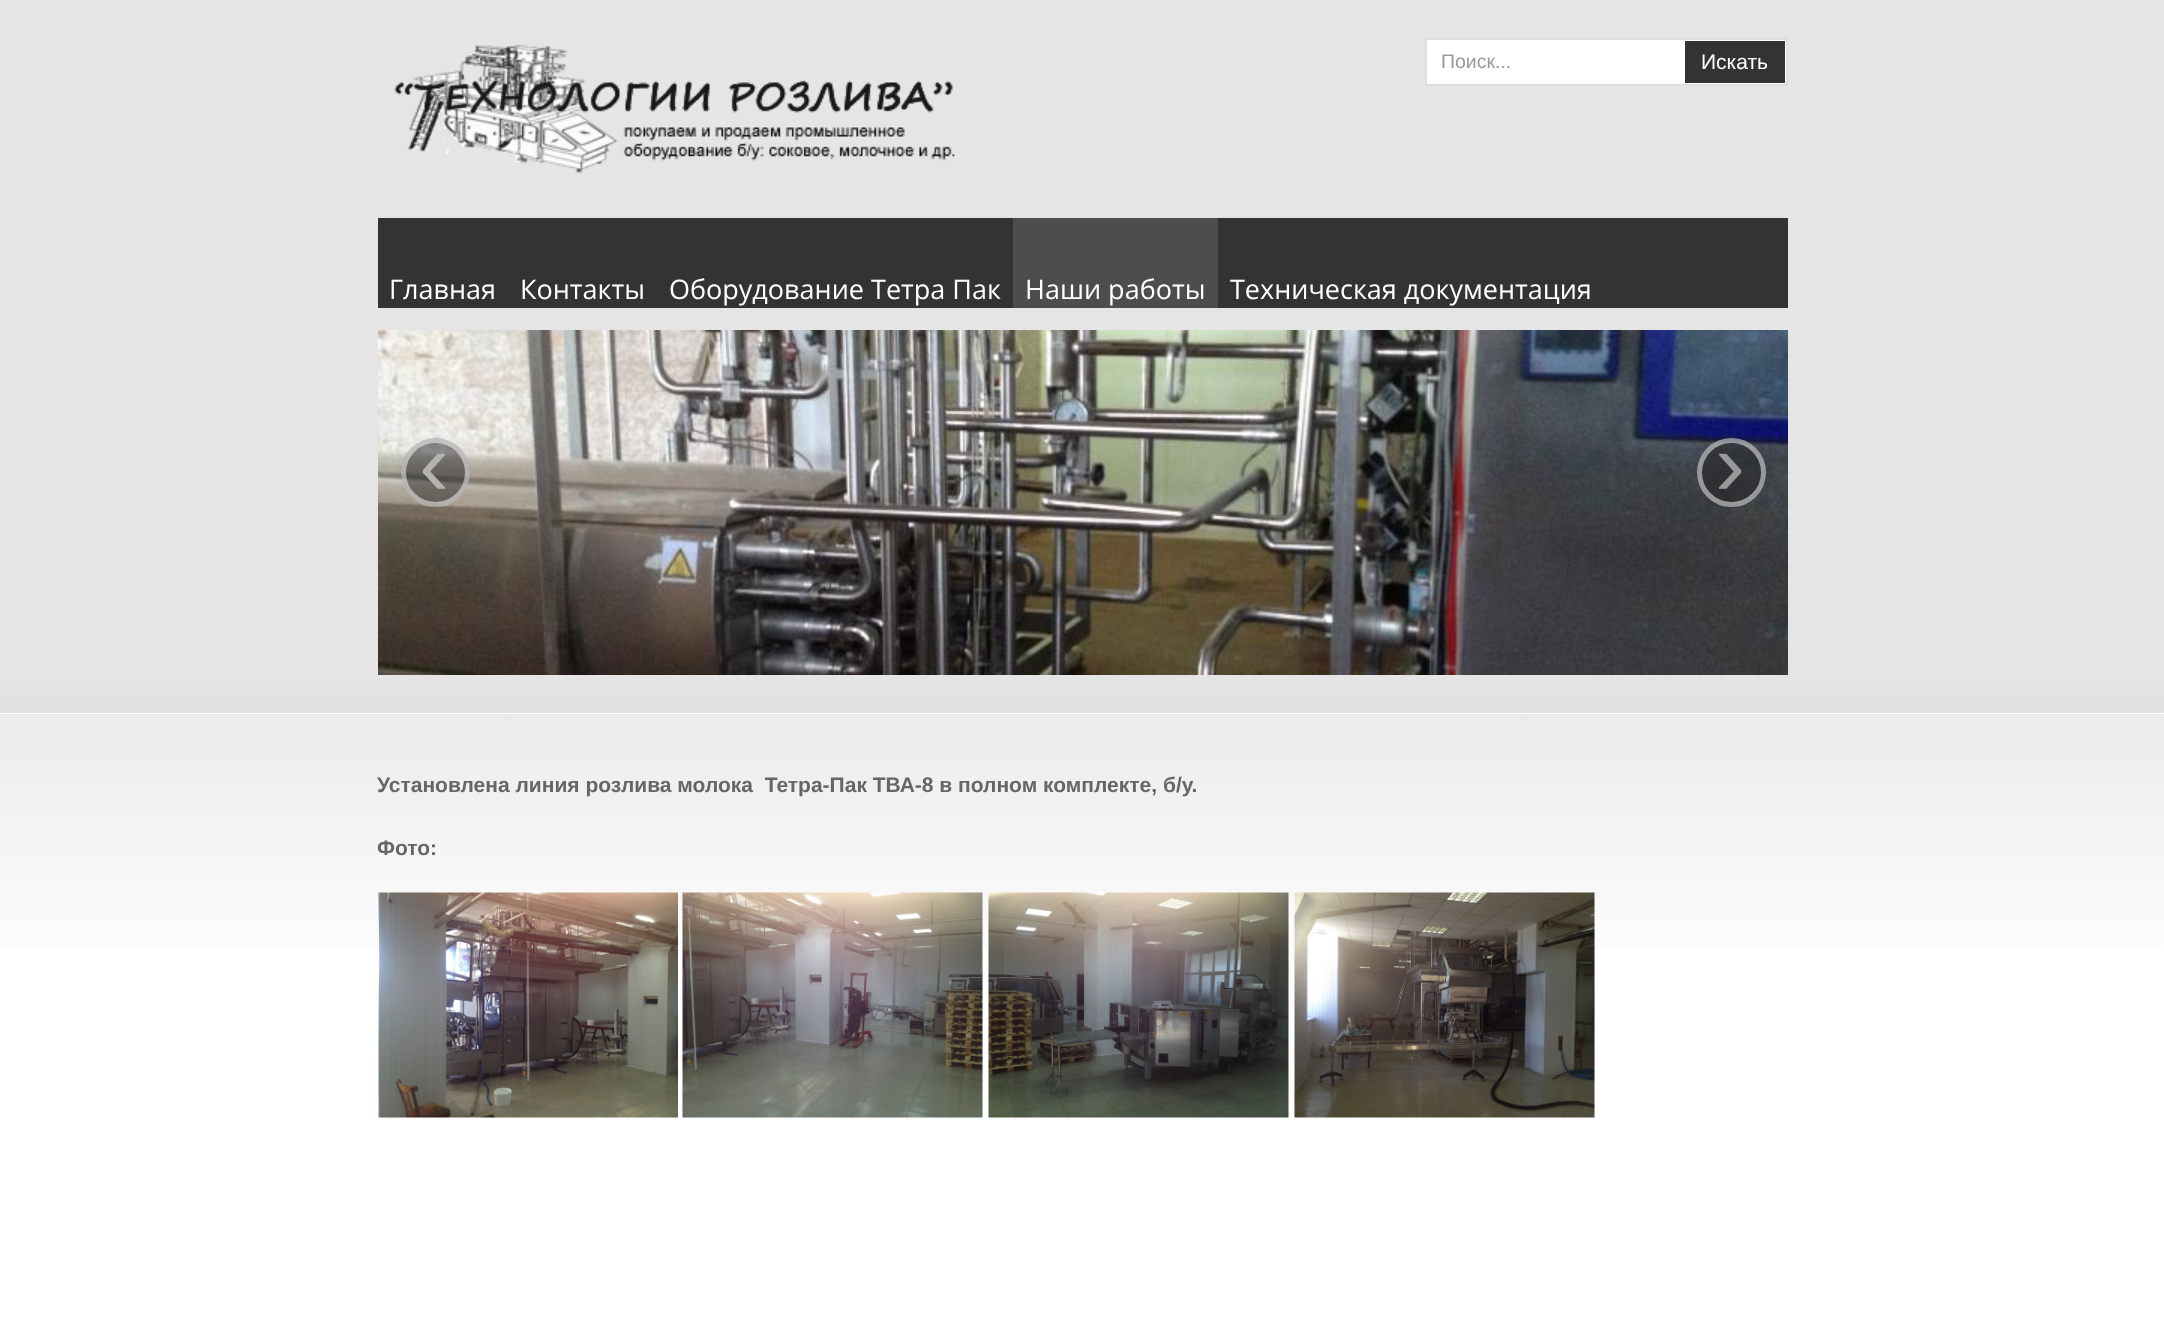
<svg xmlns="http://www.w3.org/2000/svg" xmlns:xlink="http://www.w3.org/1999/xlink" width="2164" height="1341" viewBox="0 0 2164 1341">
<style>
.cls-1{font:19.5px Liberation Sans;fill:#999999}
.cls-2{font:21px Liberation Sans;fill:#ffffff}
.cls-3{font:27px Open Sans;fill:#ffffff}
.cls-4{font:90px Liberation Sans;fill:#b4b3b1}
.cls-5{font:90px Liberation Sans;fill:#999999}
.cls-6{font:bold 21px Liberation Sans;fill:#666666}
</style>
<defs>
<linearGradient id="g1" gradientUnits="userSpaceOnUse" x1="1082" y1="682" x2="1082" y2="713"><stop offset="0" stop-color="#e5e5e5"/><stop offset="1" stop-color="#e0e0e0"/></linearGradient>
<linearGradient id="g2" gradientUnits="userSpaceOnUse" x1="1082" y1="714" x2="1082" y2="984"><stop offset="0" stop-color="#ebebeb"/><stop offset="1" stop-color="#ffffff"/></linearGradient>
</defs>
<rect width="100%" height="100%" fill="#ffffff"/>
<rect fill="#e5e5e5" x="0" y="0" width="2164" height="683"/>
<image xlink:href="image0.png" x="394" y="45" width="561" height="128"/>
<rect fill="#ffffff" stroke="#e1dce3" stroke-width="2" x="1426" y="39" width="361" height="46"/>
<rect fill="#333333" x="1685" y="41" width="100" height="42"/>
<rect fill="#333333" x="378" y="218" width="1410" height="90"/>
<rect fill="#4d4d4d" x="1013" y="218" width="205" height="90"/>
<image xlink:href="image1.png" x="378" y="330" width="1410" height="345"/>
<circle fill="#222222" fill-opacity="0.5" cx="435.5" cy="472.5" r="34.5"/>
<circle fill="none" stroke="#ffffff" stroke-opacity="0.5" stroke-width="5" cx="435.5" cy="472.5" r="32"/>
<circle fill="#222222" fill-opacity="0.5" cx="1731.5" cy="472.5" r="34.5"/>
<circle fill="none" stroke="#ffffff" stroke-opacity="0.5" stroke-width="5" cx="1731.5" cy="472.5" r="32"/>
<rect fill="url(#g1)" x="0" y="683" width="2164" height="30"/>
<rect fill="url(#g2)" x="0" y="714" width="2164" height="236"/>
<image xlink:href="image2.png" x="378" y="892" width="300" height="226"/>
<image xlink:href="image3.png" x="682" y="892" width="301" height="226"/>
<image xlink:href="image4.png" x="988" y="892" width="301" height="226"/>
<image xlink:href="image5.png" x="1294" y="892" width="301" height="226"/>
<text class="cls-1" x="1441" y="68">Поиск...</text>
<text class="cls-2" x="1701" y="69">Искать</text>
<text class="cls-3" x="389" y="299">Главная</text>
<text class="cls-3" x="520" y="299">Контакты</text>
<text class="cls-3" x="669" y="299">Оборудование Тетра Пак</text>
<text class="cls-3" x="1025" y="299">Наши работы</text>
<text class="cls-3" x="1230" y="299">Техническая документация</text>
<text class="cls-4" x="419" y="495">‹</text>
<text class="cls-5" x="1715" y="495">›</text>
<text class="cls-6" xml:space="preserve" x="377" y="792">Установлена линия розлива молока  Тетра-Пак ТВА-8 в полном комплекте, б/у.</text>
<text class="cls-6" x="377" y="855">Фото:</text>
</svg>
